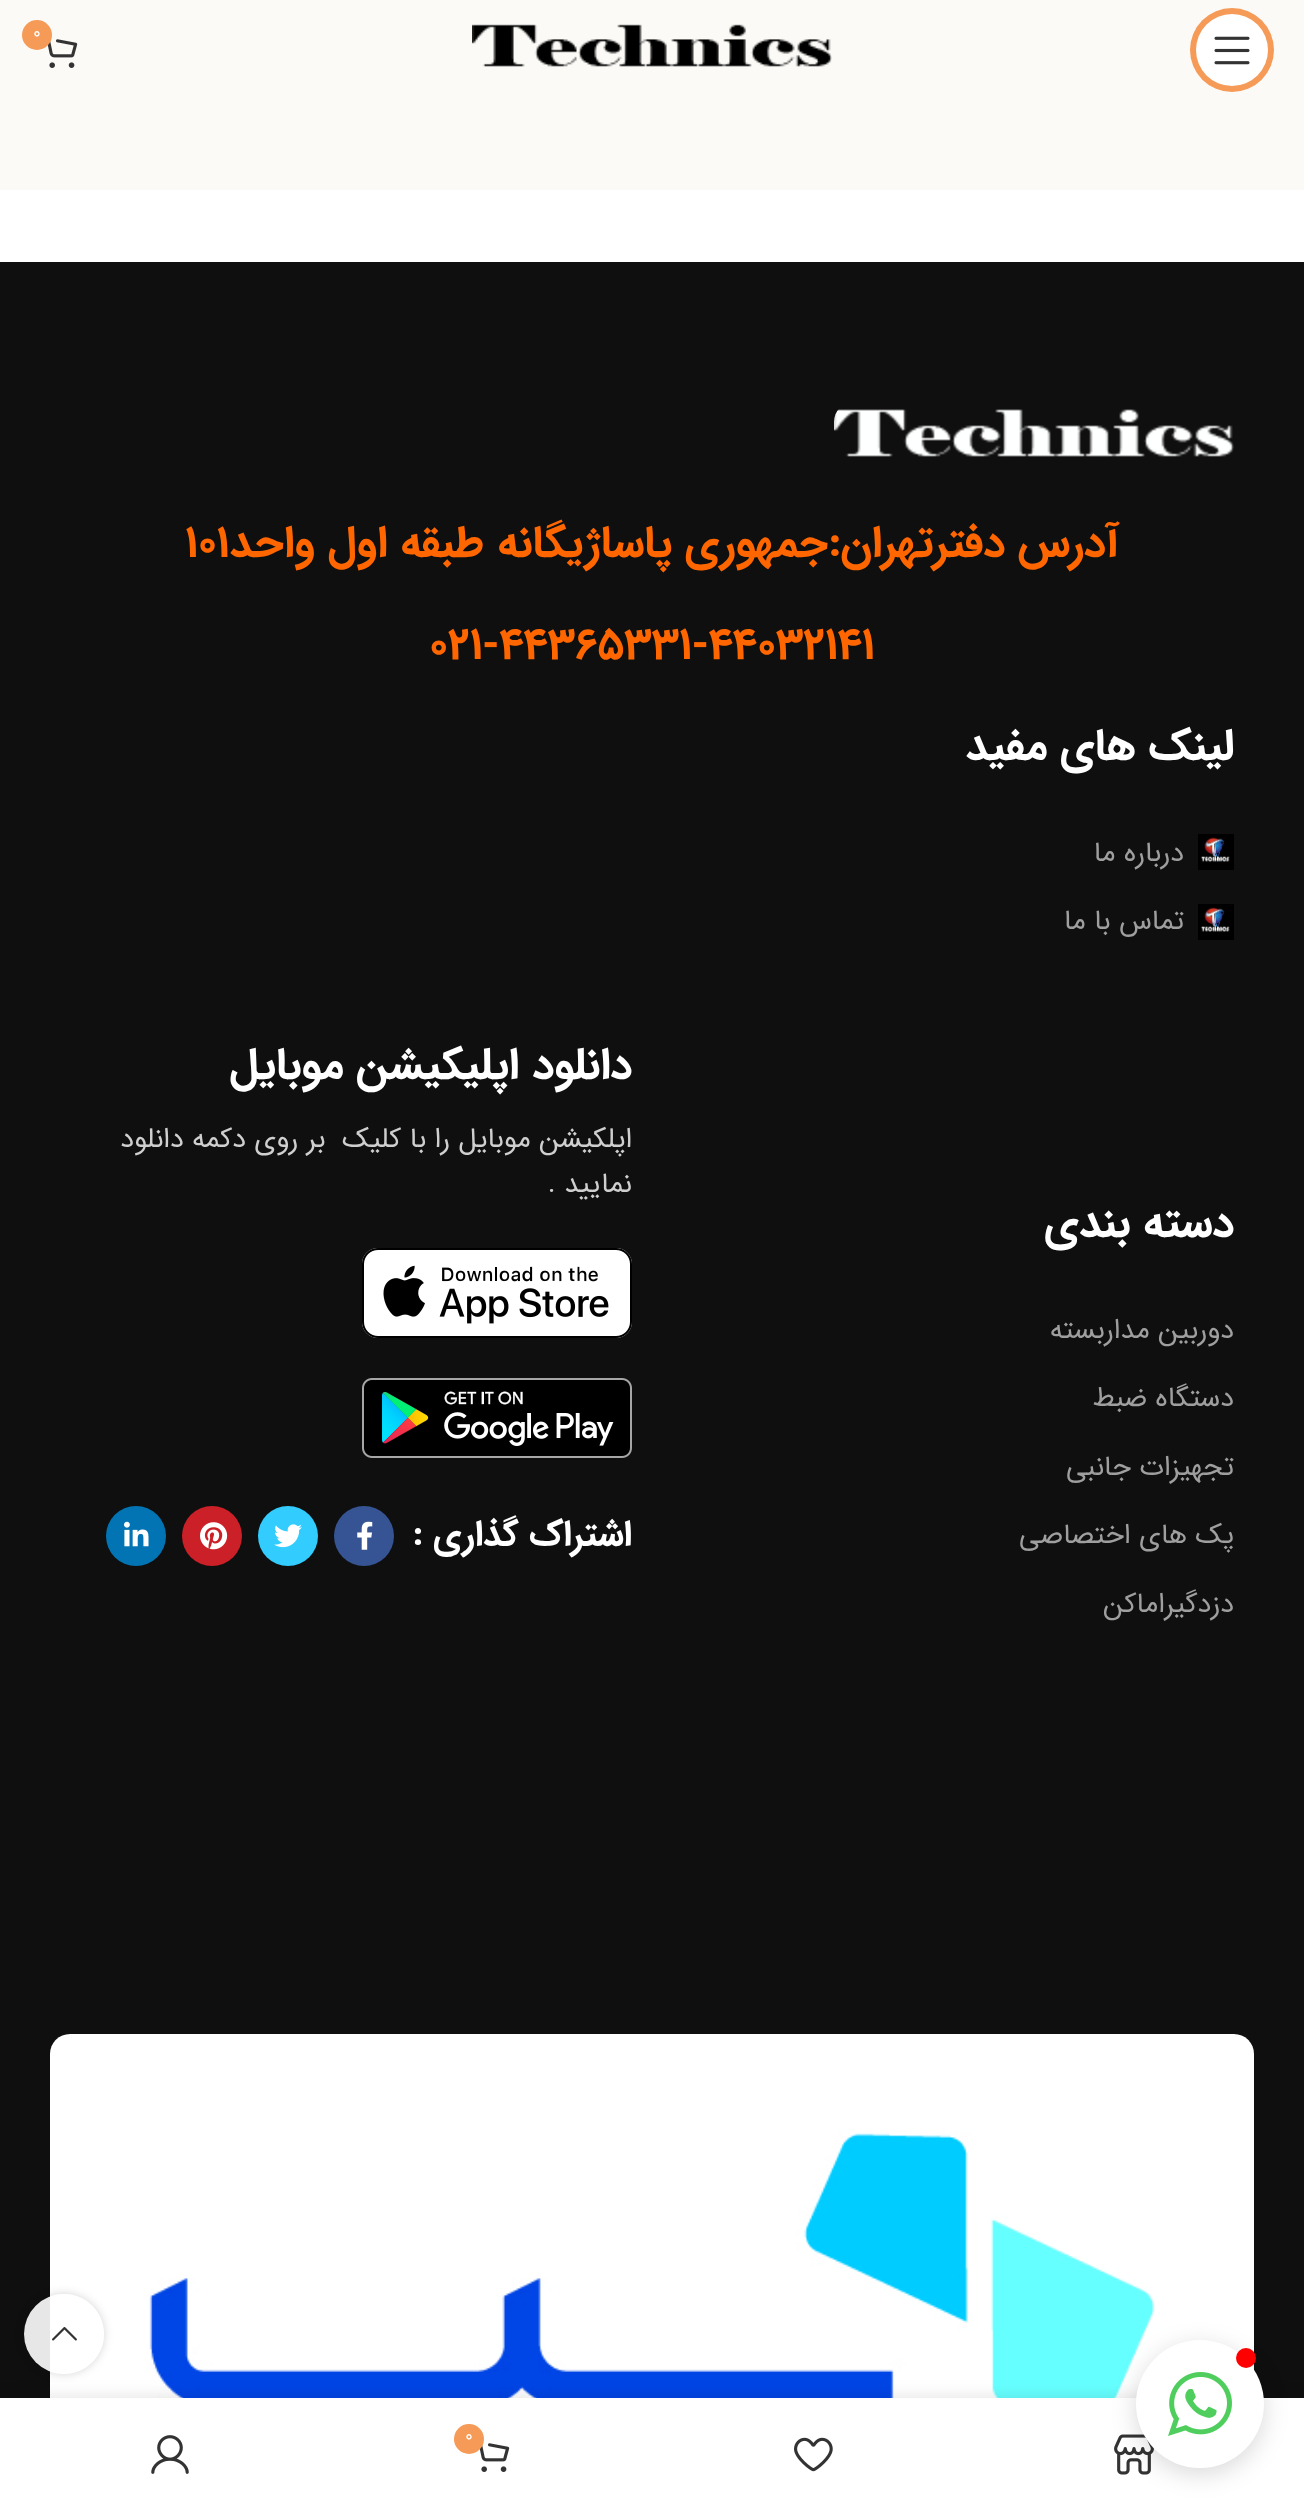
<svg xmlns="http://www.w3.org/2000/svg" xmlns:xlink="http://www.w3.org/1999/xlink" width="1304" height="2508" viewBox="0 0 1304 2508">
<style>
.cls-1{font:18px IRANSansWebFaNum;fill:#ffffff}
.cls-2{font:bold 44px IRANSansWebFaNum;direction:rtl;fill:#ff6600}
.cls-3{font:bold 44px IRANSansWebFaNum;fill:#ff6600}
.cls-4{font:bold 44px IRANSansWebFaNum;direction:rtl;fill:#ffffff}
.cls-5{font:28px IRANSansWebFaNum;direction:rtl;fill:#9f9f9f}
.cls-6{font:28px IRANSansWebFaNum;direction:rtl;fill:#cfcfcf}
.cls-7{font:bold 36px IRANSansWebFaNum;direction:rtl;fill:#ffffff}
</style>
<defs>
<clipPath id="clip1"><path d="M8 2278H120V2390H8ZM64 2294C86 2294 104 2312 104 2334C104 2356 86 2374 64 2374C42 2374 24 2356 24 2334C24 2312 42 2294 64 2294Z" clip-rule="evenodd"/></clipPath>
</defs>
<rect width="100%" height="100%" fill="#ffffff"/>
<rect fill="#fbfaf7" x="0" y="0" width="1304" height="190"/>
<circle fill="#f59a57" cx="1232" cy="50" r="42"/>
<circle fill="#ffffff" cx="1232" cy="50" r="36"/>
<image xlink:href="image0.png" x="1214" y="36" width="36" height="29"/>
<image xlink:href="image1.png" x="472" y="24" width="360" height="43"/>
<image xlink:href="image2.png" x="47" y="39" width="31" height="29"/>
<circle fill="#f59a57" cx="37" cy="35" r="15"/>
<rect fill="#0f0f0f" x="0" y="262" width="1304" height="2136"/>
<image xlink:href="image3.png" x="834" y="409" width="400" height="48"/>
<image xlink:href="image4.png" x="1198" y="834" width="36" height="36"/>
<image xlink:href="image4.png" x="1198" y="904" width="36" height="36"/>
<image xlink:href="image5.png" x="362" y="1248" width="270" height="90"/>
<image xlink:href="image6.png" x="362" y="1378" width="270" height="80"/>
<circle fill="#365493" cx="364" cy="1536" r="30"/>
<image xlink:href="image7.png" x="357" y="1521" width="16" height="29"/>
<circle fill="#33ccff" cx="288" cy="1536" r="30"/>
<image xlink:href="image8.png" x="274" y="1524" width="28" height="24"/>
<circle fill="#cb2027" cx="212" cy="1536" r="30"/>
<image xlink:href="image9.png" x="200" y="1522" width="28" height="28"/>
<circle fill="#0274b3" cx="136" cy="1536" r="30"/>
<image xlink:href="image10.png" x="124" y="1521" width="25" height="26"/>
<image xlink:href="image11.png" x="50" y="2034" width="1204" height="364"/>
<g clip-path="url(#clip1)">
<rect fill="#000000" fill-opacity="0.17" filter="blur(5px)" x="24" y="2294" width="80" height="80" rx="40"/>
</g>
<circle fill="#ffffff" fill-opacity="0.9" cx="64" cy="2334" r="40"/>
<rect fill="#000000" fill-opacity="0.12" filter="blur(9px)" x="0" y="2398" width="1304" height="110"/>
<rect fill="#ffffff" x="0" y="2398" width="1304" height="110"/>
<image xlink:href="image13.png" x="1114" y="2434" width="40" height="41"/>
<rect fill="#000000" fill-opacity="0.15" filter="blur(12px)" x="1136" y="2346" width="128" height="128" rx="64"/>
<circle fill="#ffffff" cx="1200" cy="2404" r="64"/>
<circle fill="#ff0000" cx="1246" cy="2358" r="10"/>
<image xlink:href="image12.png" x="1168" y="2372" width="64" height="64"/>
<image xlink:href="image14.png" x="794" y="2437" width="39" height="35"/>
<image xlink:href="image15.png" x="479" y="2443" width="31" height="29"/>
<circle fill="#f59a57" cx="469" cy="2439" r="15"/>
<image xlink:href="image16.png" x="151" y="2435" width="38" height="39"/>
<image xlink:href="image17.png" x="52" y="2327" width="25" height="14"/>
<text class="cls-1" x="33" y="38">0</text>
<text class="cls-2" x="1119" y="556">آدرس دفترتهران:جمهوری پاساژیگانه طبقه اول واحد</text>
<text class="cls-3" x="185" y="556">101</text>
<text class="cls-3" x="429" y="658">021-44365331-44032141</text>
<text class="cls-4" x="1234" y="759">لینک های مفید</text>
<text class="cls-5" x="1184" y="861">درباره ما</text>
<text class="cls-5" x="1184" y="929">تماس با ما</text>
<text class="cls-4" x="1234" y="1236">دسته بندی</text>
<text class="cls-5" x="1234" y="1338">دوربین مداربسته</text>
<text class="cls-5" x="1234" y="1406">دستگاه ضبط</text>
<text class="cls-5" x="1234" y="1475">تجهیزات جانبی</text>
<text class="cls-5" x="1234" y="1543">پک های اختصاصی</text>
<text class="cls-5" x="1234" y="1612">دزدگیراماکن</text>
<text class="cls-4" x="632" y="1078">دانلود اپلیکیشن موبایل</text>
<text class="cls-6" xml:space="preserve"><tspan x="632" y="1147">اپلکیشن موبایل را با کلیک  بر روی دکمه دانلود</tspan><tspan x="632" y="1192">نمایید .</tspan></text>
<text class="cls-7" x="632" y="1545">اشتراک گذاری :</text>
<text class="cls-1" x="465" y="2441">0</text>
</svg>
